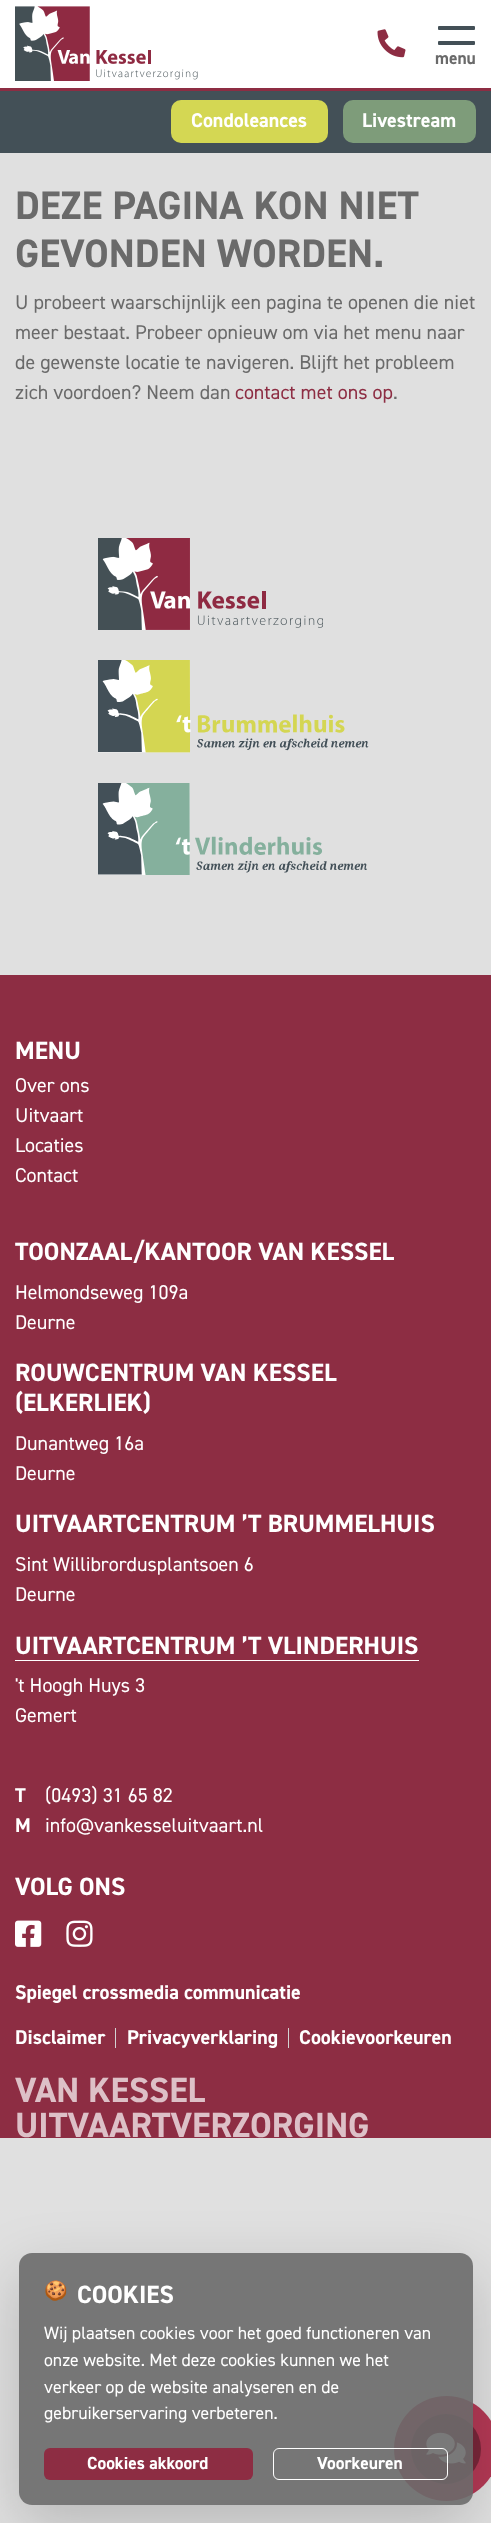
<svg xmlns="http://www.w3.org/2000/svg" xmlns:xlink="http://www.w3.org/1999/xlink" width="491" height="2523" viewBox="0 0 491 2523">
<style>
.cls-1{font:bold 17.5px 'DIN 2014';fill:#6a6a6a}
.cls-2{font:bold 20px 'DIN 2014';fill:#ffffff}
.cls-3{font:bold 39.75px 'DIN 2014';fill:#6a6a6a}
.cls-4{font:20px 'DIN 2014';fill:#6a6a6a}
.cls-5{font:20px 'DIN 2014';fill:#8d2d43}
.cls-6{font:bold 25px 'DIN 2014';fill:#ffffff}
.cls-7{font:20px 'DIN 2014';fill:#ffffff}
.cls-8{font:bold 35px 'DIN 2014';fill:#ddc0c7}
.cls-9{font:19px Noto Color Emoji;fill:#ffffff}
.cls-10{font:17.8px 'DIN 2014';fill:#ffffff}
.cls-11{font:bold 17.5px 'DIN 2014';fill:#ffffff}
</style>
<defs>
<clipPath id="clip1"><path d="M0 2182H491V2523H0ZM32 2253H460C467 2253 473 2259 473 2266V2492C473 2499 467 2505 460 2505H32C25 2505 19 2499 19 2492V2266C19 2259 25 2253 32 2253Z" clip-rule="evenodd"/></clipPath>
</defs>
<rect width="100%" height="100%" fill="#e0e0e0"/>
<rect fill="#ffffff" x="0" y="0" width="491" height="88"/>
<rect fill="#8d2d43" x="0" y="88" width="491" height="3"/>
<image xlink:href="image0.png" x="15" y="6" width="183" height="75"/>
<image xlink:href="image1.png" x="377" y="29" width="29" height="29"/>
<rect fill="#435057" x="438" y="26" width="37" height="4" rx="1"/>
<rect fill="#435057" x="438" y="41" width="37" height="4" rx="1"/>
<rect fill="#435057" x="0" y="91" width="491" height="62"/>
<rect fill="#d4d753" x="171" y="100" width="157" height="43" rx="10"/>
<rect fill="#7e9c7a" x="343" y="100" width="133" height="43" rx="10"/>
<image xlink:href="image2.png" x="98" y="538" width="225" height="92"/>
<image xlink:href="image3.png" x="98" y="660" width="271" height="93"/>
<image xlink:href="image4.png" x="98" y="783" width="269" height="92"/>
<rect fill="#8d2d43" x="0" y="975" width="491" height="1163"/>
<rect fill="#ffffff" x="15" y="1660" width="404" height="1"/>
<image xlink:href="image5.png" x="15" y="1920" width="27" height="27"/>
<image xlink:href="image6.png" x="66" y="1920" width="27" height="27"/>
<rect fill="#d3d3d3" x="115" y="2028" width="1" height="20"/>
<rect fill="#d3d3d3" x="288" y="2028" width="1" height="20"/>
<circle fill="#b43955" cx="446.5" cy="2448.5" r="52.5"/>
<circle fill="#7a273a" cx="446" cy="2449" r="35"/>
<image xlink:href="image7.png" x="426" y="2432" width="40" height="32"/>
<g clip-path="url(#clip1)">
<rect fill="#000000" fill-opacity="0.18" filter="blur(30px)" x="19" y="2273" width="454" height="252" rx="13"/>
</g>
<rect fill="#6a6a6a" fill-opacity="0.9" x="19" y="2253" width="454" height="252" rx="13"/>
<rect fill="#8d2d43" x="44" y="2448" width="209" height="32" rx="6"/>
<rect fill="none" stroke="#ffffff" x="273.5" y="2448.5" width="174" height="31" rx="5.5"/>
<text class="cls-1" x="435" y="64">menu</text>
<text class="cls-2" x="191" y="127">Condoleances</text>
<text class="cls-2" x="362" y="127">Livestream</text>
<text class="cls-3"><tspan x="15" y="219">DEZE PAGINA KON NIET</tspan><tspan x="15" y="267">GEVONDEN WORDEN.</tspan></text>
<text class="cls-4"><tspan x="15" y="309">U probeert waarschijnlijk een pagina te openen die niet</tspan><tspan x="15" y="339">meer bestaat. Probeer opnieuw om via het menu naar</tspan><tspan x="15" y="369">de gewenste locatie te navigeren. Blijft het probleem</tspan><tspan x="15" y="399">zich voordoen? Neem dan</tspan></text>
<text class="cls-5" x="235" y="399">contact met ons op</text>
<text class="cls-4" x="393" y="399">.</text>
<text class="cls-6" x="15" y="1059">MENU</text>
<text class="cls-7"><tspan x="15" y="1092">Over ons</tspan><tspan x="15" y="1122">Uitvaart</tspan><tspan x="15" y="1152">Locaties</tspan><tspan x="15" y="1182">Contact</tspan></text>
<text class="cls-6" x="15" y="1260">TOONZAAL/KANTOOR VAN KESSEL</text>
<text class="cls-7"><tspan x="15" y="1299">Helmondseweg 109a</tspan><tspan x="15" y="1329">Deurne</tspan></text>
<text class="cls-6"><tspan x="15" y="1381">ROUWCENTRUM VAN KESSEL</tspan><tspan x="15" y="1411">(ELKERLIEK)</tspan></text>
<text class="cls-7"><tspan x="15" y="1450">Dunantweg 16a</tspan><tspan x="15" y="1480">Deurne</tspan></text>
<text class="cls-6" x="15" y="1532">UITVAARTCENTRUM ’T BRUMMELHUIS</text>
<text class="cls-7"><tspan x="15" y="1571">Sint Willibrordusplantsoen 6</tspan><tspan x="15" y="1601">Deurne</tspan></text>
<text class="cls-6" x="15" y="1654">UITVAARTCENTRUM ’T VLINDERHUIS</text>
<text class="cls-7"><tspan x="15" y="1692">'t Hoogh Huys 3</tspan><tspan x="15" y="1722">Gemert</tspan></text>
<text class="cls-2" x="15" y="1802">T</text>
<text class="cls-7" x="45" y="1802">(0493) 31 65 82</text>
<text class="cls-2" x="15" y="1832">M</text>
<text class="cls-7" x="45" y="1832">info@vankesseluitvaart.nl</text>
<text class="cls-6" x="15" y="1895">VOLG ONS</text>
<text class="cls-2" x="15" y="1999">Spiegel crossmedia communicatie</text>
<text class="cls-2" x="15" y="2044">Disclaimer</text>
<text class="cls-2" x="127" y="2044">Privacyverklaring</text>
<text class="cls-2" x="299" y="2044">Cookievoorkeuren</text>
<text class="cls-8"><tspan x="15" y="2102">VAN KESSEL</tspan><tspan x="15" y="2137">UITVAARTVERZORGING</tspan></text>
<text class="cls-9" x="44" y="2297">🍪</text>
<text class="cls-6" x="77" y="2303">COOKIES</text>
<text class="cls-10"><tspan x="44" y="2339">Wij plaatsen cookies voor het goed functioneren van</tspan><tspan x="44" y="2366">onze website. Met deze cookies kunnen we het</tspan><tspan x="44" y="2393">verkeer op de website analyseren en de</tspan><tspan x="44" y="2419">gebruikerservaring verbeteren.</tspan></text>
<text class="cls-11" x="87" y="2469">Cookies akkoord</text>
<text class="cls-11" x="317" y="2469">Voorkeuren</text>
</svg>
